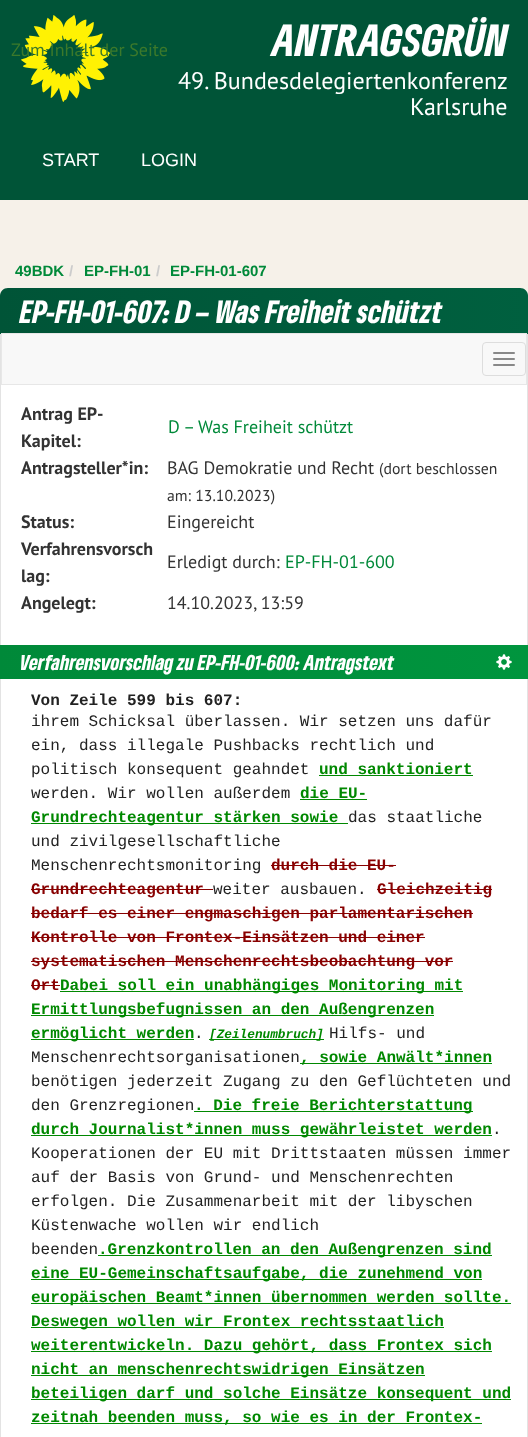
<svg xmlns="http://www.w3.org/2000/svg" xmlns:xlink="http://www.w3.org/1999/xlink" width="528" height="1437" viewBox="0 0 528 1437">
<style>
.cls-1{font:italic 900 42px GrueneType;fill:#ffffff}
.cls-2{font:24px PT Sans;fill:#ffffff}
.cls-3{font:18px Liberation Sans;fill:#ffffff}
.cls-4{font:bold 15px Liberation Sans;fill:#008939}
.cls-5{font:bold 15px Liberation Sans;fill:#cccccc}
.cls-6{font:italic 900 30px GrueneType;fill:#ffffff}
.cls-7{font:bold 18px PT Sans;fill:#333333}
.cls-8{font:18px PT Sans;fill:#008939}
.cls-9{font:18px PT Sans;fill:#333333}
.cls-10{font:15.75px PT Sans;fill:#333333}
.cls-11{font:italic 900 20px GrueneType;fill:#ffffff}
.cls-12{font:bold 16px Liberation Mono;fill:#222222}
.cls-13{font:16px Liberation Mono;fill:#222222}
.cls-14{font:bold 16px Liberation Mono;fill:#008800}
.cls-15{font:bold 16px Liberation Mono;fill:#880000}
.cls-16{font:italic bold 12.75px Liberation Mono;fill:#008800}
.cls-17{font:18px PT Sans;fill:#3c792b}
</style>
<defs>
<linearGradient id="g1" gradientUnits="userSpaceOnUse" x1="0" y1="311" x2="528" y2="311"><stop offset="0" stop-color="#005437"/><stop offset="1" stop-color="#00603f"/></linearGradient>
<linearGradient id="g2" gradientUnits="userSpaceOnUse" x1="0" y1="662" x2="528" y2="662"><stop offset="0" stop-color="#008939"/><stop offset="1" stop-color="#00953e"/></linearGradient>
</defs>
<rect width="100%" height="100%" fill="#f6f1e9"/>
<rect fill="#005437" x="0" y="0" width="528" height="200"/>
<image xlink:href="image0.png" x="21" y="15" width="89" height="87"/>
<rect fill="#ffffff" stroke="#e3e3e3" x="0.5" y="288.5" width="527" height="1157" rx="7.5"/>
<path fill="url(#g1)" d="M8 288H520C524.5 288 528 291.5 528 296V334H0V296C0 291.5 3.5 288 8 288Z"/>
<rect fill="#f8f8f8" stroke="#e7e7e7" x="1.5" y="333.5" width="525" height="51"/>
<rect fill="none" stroke="#dddddd" x="482.5" y="342.5" width="43" height="33" rx="3.5"/>
<rect fill="#888888" x="493" y="352" width="22" height="2" rx="1"/>
<rect fill="#888888" x="493" y="358" width="22" height="2" rx="1"/>
<rect fill="#888888" x="493" y="364" width="22" height="2" rx="1"/>
<rect fill="url(#g2)" x="0" y="645" width="528" height="34"/>
<image xlink:href="image1.png" x="496" y="654" width="16" height="16"/>
<rect fill="#008800" x="319" y="775" width="154" height="1"/>
<rect fill="#008800" x="300" y="799" width="67" height="1"/>
<rect fill="#008800" x="31" y="823" width="317" height="1"/>
<rect fill="#880000" x="271" y="865" width="125" height="1"/>
<rect fill="#880000" x="31" y="889" width="182" height="1"/>
<rect fill="#880000" x="377" y="889" width="115" height="1"/>
<rect fill="#880000" x="31" y="913" width="442" height="1"/>
<rect fill="#880000" x="31" y="937" width="394" height="1"/>
<rect fill="#880000" x="31" y="961" width="422" height="1"/>
<rect fill="#880000" x="31" y="985" width="29" height="1"/>
<rect fill="#008800" x="60" y="991" width="403" height="1"/>
<rect fill="#008800" x="31" y="1015" width="403" height="1"/>
<rect fill="#008800" x="31" y="1039" width="163" height="1"/>
<rect fill="#008800" x="209" y="1039" width="115" height="1"/>
<rect fill="#008800" x="300" y="1063" width="192" height="1"/>
<rect fill="#008800" x="194" y="1111" width="279" height="1"/>
<rect fill="#008800" x="31" y="1135" width="461" height="1"/>
<rect fill="#008800" x="98" y="1255" width="394" height="1"/>
<rect fill="#008800" x="31" y="1279" width="451" height="1"/>
<rect fill="#008800" x="31" y="1303" width="480" height="1"/>
<rect fill="#008800" x="31" y="1327" width="413" height="1"/>
<rect fill="#008800" x="31" y="1351" width="461" height="1"/>
<rect fill="#008800" x="31" y="1375" width="394" height="1"/>
<rect fill="#008800" x="31" y="1399" width="480" height="1"/>
<rect fill="#008800" x="31" y="1423" width="451" height="1"/>
<text class="cls-1" x="272" y="56">ANTRAGSGRÜN</text>
<text class="cls-2" x="178" y="89">49. Bundesdelegiertenkonferenz</text>
<text class="cls-2" x="410" y="115">Karlsruhe</text>
<text class="cls-3" x="42" y="166">START</text>
<text class="cls-3" x="141" y="166">LOGIN</text>
<text class="cls-4" x="15" y="276">49BDK</text>
<text class="cls-5" x="69" y="276">/</text>
<text class="cls-4" x="84" y="276">EP-FH-01</text>
<text class="cls-5" x="156" y="276">/</text>
<text class="cls-4" x="170" y="276">EP-FH-01-607</text>
<text class="cls-6" x="20" y="323">EP-FH-01-607: D – Was Freiheit schützt</text>
<text class="cls-7"><tspan x="21" y="420">Antrag EP-</tspan><tspan x="21" y="447">Kapitel:</tspan></text>
<text class="cls-8" x="168" y="433">D – Was Freiheit schützt</text>
<text class="cls-7" x="21" y="474">Antragsteller*in:</text>
<text class="cls-9" x="167" y="474">BAG Demokratie und Recht</text>
<text class="cls-10" x="379" y="474">(dort beschlossen</text>
<text class="cls-10" x="167" y="501">am: 13.10.2023)</text>
<text class="cls-7" x="21" y="528">Status:</text>
<text class="cls-9" x="167" y="528">Eingereicht</text>
<text class="cls-7"><tspan x="21" y="555">Verfahrensvorsch</tspan><tspan x="21" y="582">lag:</tspan></text>
<text class="cls-9" x="167" y="568">Erledigt durch:</text>
<text class="cls-8" x="285" y="568">EP-FH-01-600</text>
<text class="cls-7" x="21" y="609">Angelegt:</text>
<text class="cls-9" x="167" y="609">14.10.2023, 13:59</text>
<text class="cls-11" x="20" y="670">Verfahrensvorschlag zu EP-FH-01-600: Antragstext</text>
<text class="cls-12" x="31" y="705">Von Zeile 599 bis 607:</text>
<text class="cls-13"><tspan x="31" y="726">ihrem Schicksal überlassen. Wir setzen uns dafür</tspan><tspan x="31" y="750">ein, dass illegale Pushbacks rechtlich und</tspan><tspan x="31" y="774">politisch konsequent geahndet</tspan></text>
<text class="cls-14" x="319" y="774">und sanktioniert</text>
<text class="cls-13" x="31" y="798">werden. Wir wollen außerdem</text>
<text class="cls-14" x="300" y="798">die EU-</text>
<text class="cls-14" x="31" y="822">Grundrechteagentur stärken sowie</text>
<text class="cls-13" x="348" y="822">das staatliche</text>
<text class="cls-13"><tspan x="31" y="846">und zivilgesellschaftliche</tspan><tspan x="31" y="870">Menschenrechtsmonitoring</tspan></text>
<text class="cls-15" x="271" y="870">durch die EU-</text>
<text class="cls-15" x="31" y="894">Grundrechteagentur</text>
<text class="cls-13" x="213" y="894">weiter ausbauen.</text>
<text class="cls-15" x="377" y="894">Gleichzeitig</text>
<text class="cls-15"><tspan x="31" y="918">bedarf es einer engmaschigen parlamentarischen</tspan><tspan x="31" y="942">Kontrolle von Frontex-Einsätzen und einer</tspan><tspan x="31" y="966">systematischen Menschenrechtsbeobachtung vor</tspan><tspan x="31" y="990">Ort</tspan></text>
<text class="cls-14" x="60" y="990">Dabei soll ein unabhängiges Monitoring mit</text>
<text class="cls-14"><tspan x="31" y="1014">Ermittlungsbefugnissen an den Außengrenzen</tspan><tspan x="31" y="1038">ermöglicht werden</tspan></text>
<text class="cls-13" x="194" y="1038">.</text>
<text class="cls-16" x="209" y="1038">[Zeilenumbruch]</text>
<text class="cls-13" x="329" y="1038">Hilfs- und</text>
<text class="cls-13" x="31" y="1062">Menschenrechtsorganisationen</text>
<text class="cls-14" x="300" y="1062">, sowie Anwält*innen</text>
<text class="cls-13"><tspan x="31" y="1086">benötigen jederzeit Zugang zu den Geflüchteten und</tspan><tspan x="31" y="1110">den Grenzregionen</tspan></text>
<text class="cls-14" x="194" y="1110">. Die freie Berichterstattung</text>
<text class="cls-14" x="31" y="1134">durch Journalist*innen muss gewährleistet werden</text>
<text class="cls-13" x="492" y="1134">.</text>
<text class="cls-13"><tspan x="31" y="1158">Kooperationen der EU mit Drittstaaten müssen immer</tspan><tspan x="31" y="1182">auf der Basis von Grund- und Menschenrechten</tspan><tspan x="31" y="1206">erfolgen. Die Zusammenarbeit mit der libyschen</tspan><tspan x="31" y="1230">Küstenwache wollen wir endlich</tspan><tspan x="31" y="1254">beenden</tspan></text>
<text class="cls-14" x="98" y="1254">.Grenzkontrollen an den Außengrenzen sind</text>
<text class="cls-14"><tspan x="31" y="1278">eine EU-Gemeinschaftsaufgabe, die zunehmend von</tspan><tspan x="31" y="1302">europäischen Beamt*innen übernommen werden sollte.</tspan><tspan x="31" y="1326">Deswegen wollen wir Frontex rechtsstaatlich</tspan><tspan x="31" y="1350">weiterentwickeln. Dazu gehört, dass Frontex sich</tspan><tspan x="31" y="1374">nicht an menschenrechtswidrigen Einsätzen</tspan><tspan x="31" y="1398">beteiligen darf und solche Einsätze konsequent und</tspan><tspan x="31" y="1422">zeitnah beenden muss, so wie es in der Frontex-</tspan></text>
<text class="cls-17" x="11" y="56">Zum Inhalt der Seite</text>
</svg>
